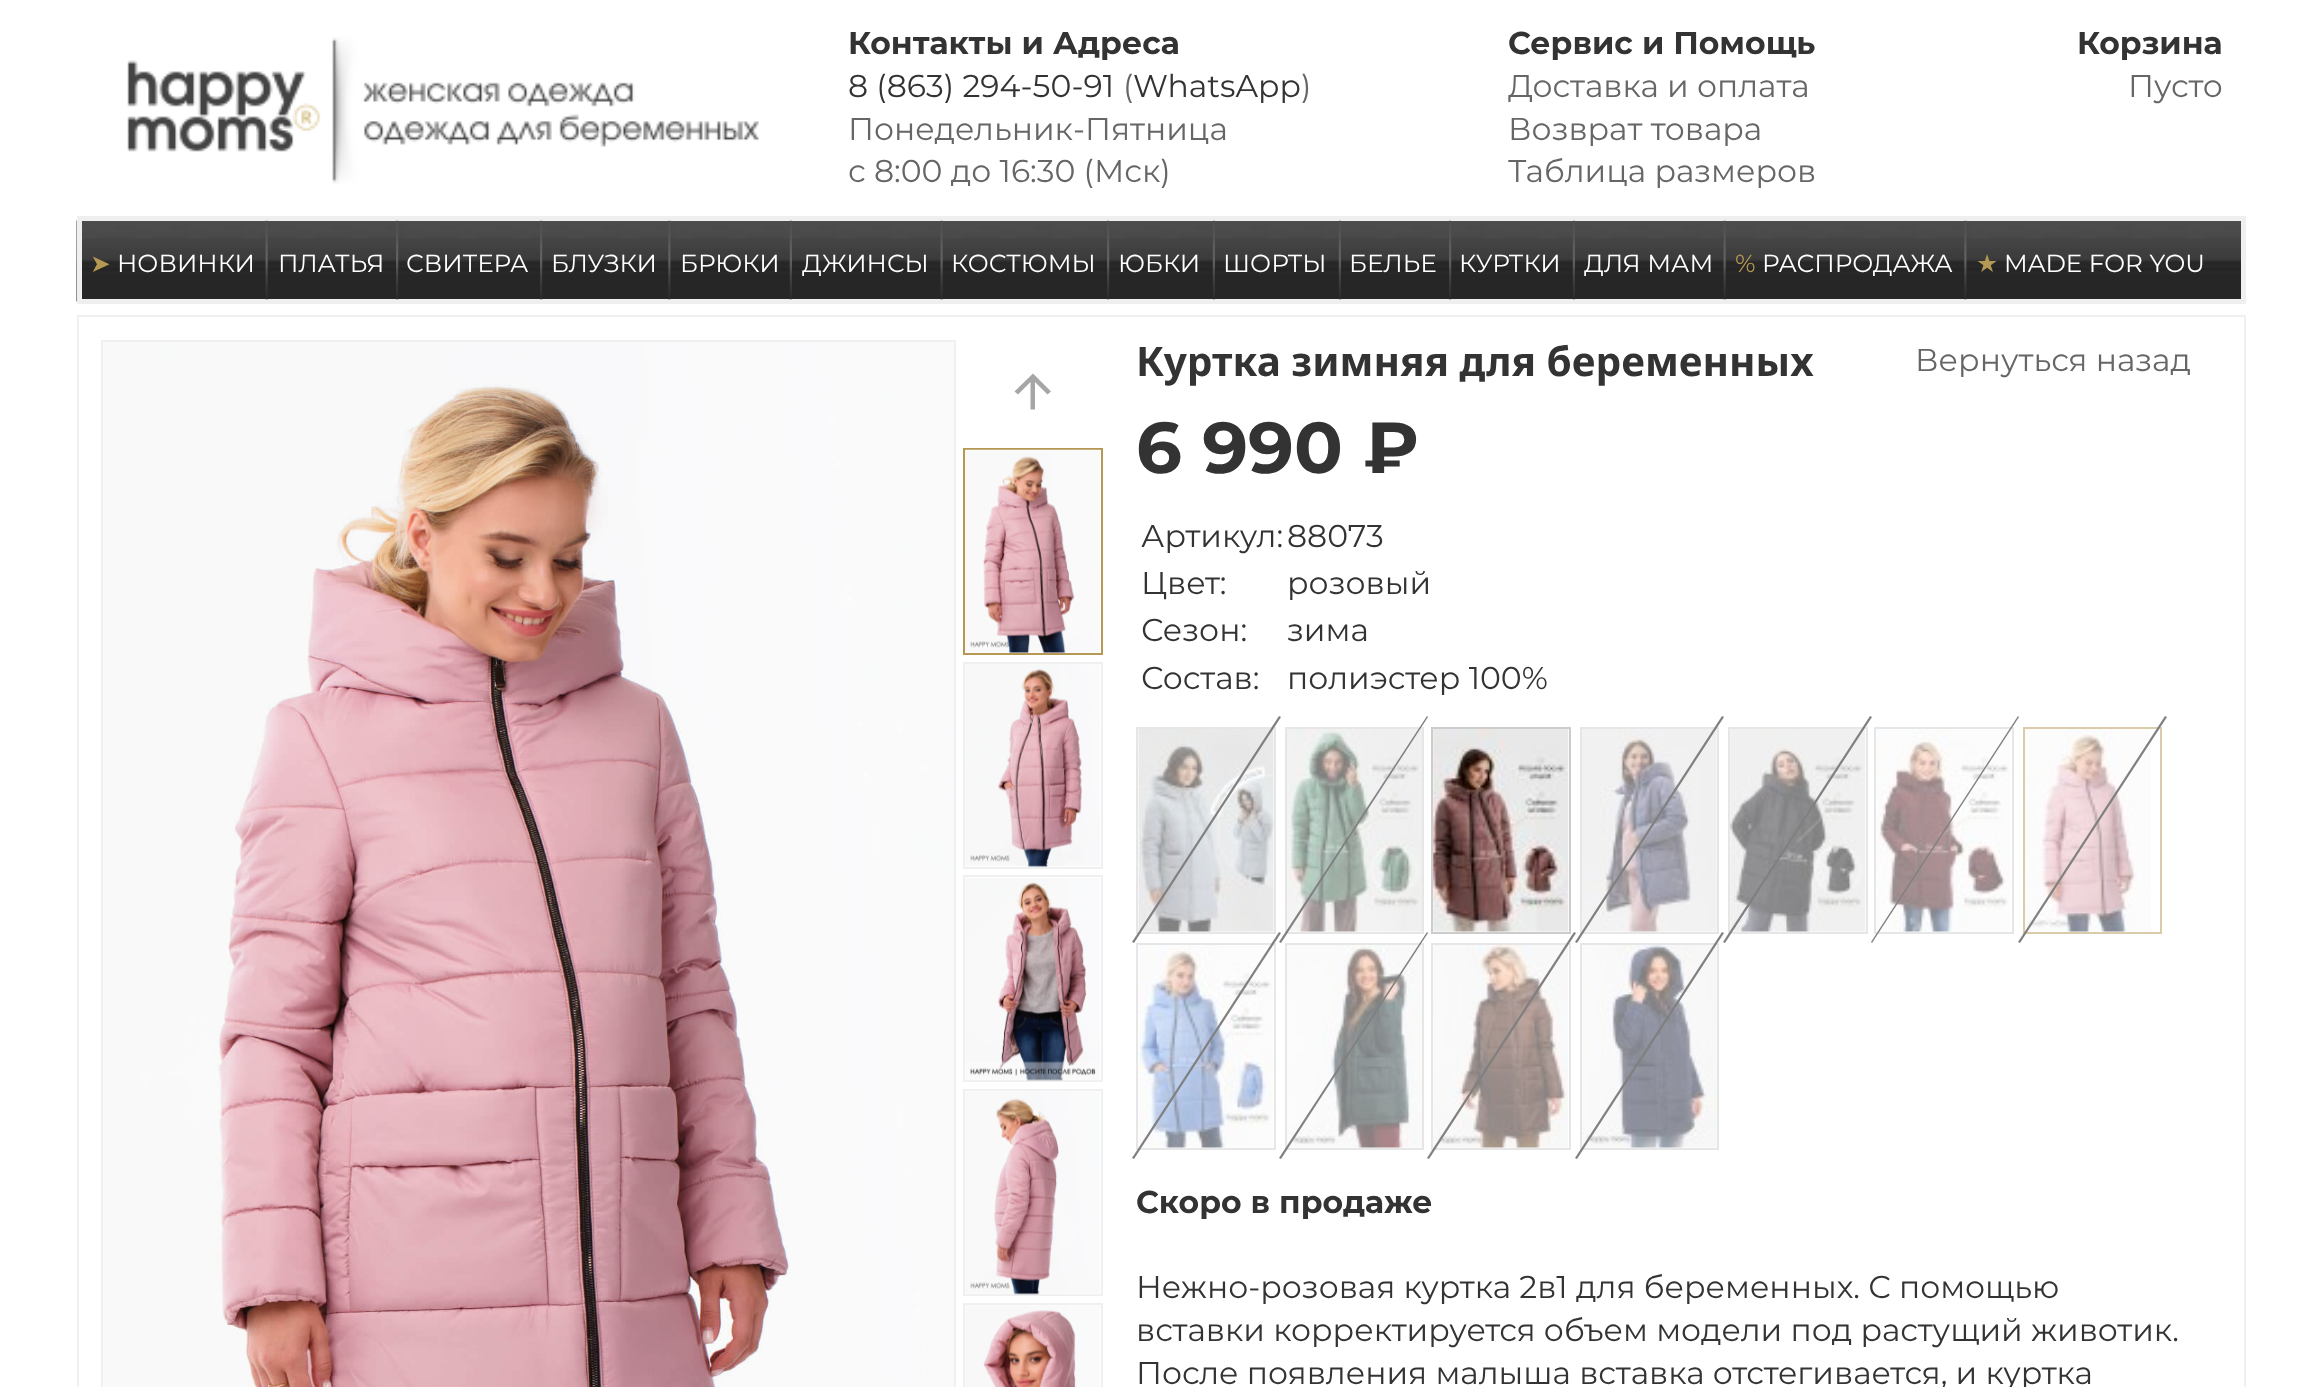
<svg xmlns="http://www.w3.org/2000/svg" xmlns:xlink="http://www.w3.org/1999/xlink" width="2320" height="1387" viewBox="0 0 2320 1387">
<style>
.cls-1{font:bold 31.5px Montserrat;fill:#333333}
.cls-2{font:31.5px Montserrat;fill:#333333}
.cls-3{font:31.5px Montserrat;fill:#666666}
.cls-4{font:24.75px DejaVu Sans;fill:#b49853}
.cls-5{font:24.75px Montserrat;fill:#ffffff}
.cls-6{font:24.75px Montserrat;fill:#b49853}
.cls-7{font:bold 40.5px Noto Sans;fill:#333333}
.cls-8{font:bold 72px Montserrat;fill:#333333}
</style>
<rect width="100%" height="100%" fill="#ffffff"/>
<image xlink:href="image0.png" x="127" y="37" width="632" height="147"/>
<image xlink:href="image1.png" x="76" y="220" width="2165" height="82"/>
<rect fill="none" stroke="#efefef" stroke-width="5" x="79.5" y="218.5" width="2164" height="83"/>
<image xlink:href="image2.png" x="265" y="220" width="3" height="80"/>
<image xlink:href="image3.png" x="396" y="220" width="3" height="80"/>
<image xlink:href="image4.png" x="540" y="220" width="3" height="80"/>
<image xlink:href="image5.png" x="668" y="220" width="3" height="80"/>
<image xlink:href="image6.png" x="789" y="220" width="3" height="80"/>
<image xlink:href="image7.png" x="940" y="220" width="3" height="80"/>
<image xlink:href="image8.png" x="1107" y="220" width="3" height="80"/>
<image xlink:href="image9.png" x="1212" y="220" width="3" height="80"/>
<image xlink:href="image6.png" x="1338" y="220" width="3" height="80"/>
<image xlink:href="image10.png" x="1449" y="220" width="3" height="80"/>
<image xlink:href="image11.png" x="1572" y="220" width="3" height="80"/>
<image xlink:href="image2.png" x="1723" y="220" width="3" height="80"/>
<image xlink:href="image5.png" x="1964" y="220" width="3" height="80"/>
<rect fill="none" stroke="#f1f0f0" stroke-width="2" x="78" y="316" width="2167" height="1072"/>
<rect fill="none" stroke="#f1f0f0" stroke-width="2" x="102" y="341" width="853" height="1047"/>
<image xlink:href="image12.png" x="103" y="342" width="851" height="1045"/>
<path fill="#a6a6a6" d="M1014.5 391.5L1033 373.5L1051 391.5L1047.5 394.5L1035 382V409.5H1030.5V382L1018 394.5Z"/>
<rect fill="none" stroke="#b49853" stroke-width="2" x="964" y="449" width="138" height="205"/>
<image xlink:href="image13.png" x="965" y="449" width="136" height="204"/>
<rect fill="none" stroke="#f1f0f0" stroke-width="2" x="964" y="663" width="138" height="205"/>
<image xlink:href="image14.png" x="965" y="664" width="135" height="203"/>
<rect fill="none" stroke="#f1f0f0" stroke-width="2" x="964" y="876" width="138" height="205"/>
<image xlink:href="image15.png" x="965" y="878" width="135" height="203"/>
<rect fill="none" stroke="#f1f0f0" stroke-width="2" x="964" y="1090" width="138" height="205"/>
<image xlink:href="image16.png" x="965" y="1091" width="135" height="204"/>
<rect fill="none" stroke="#f1f0f0" stroke-width="2" x="964" y="1304" width="138" height="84"/>
<image xlink:href="image17.png" x="965" y="1305" width="135" height="82"/>
<rect fill="none" stroke="#e6e6e6" stroke-width="2" x="1137" y="728" width="138" height="205"/>
<image xlink:href="image18.png" x="1138" y="729" width="136" height="203"/>
<path fill="#808080" d="M1279 716L1281 717L1134 943L1132 942Z"/>
<rect fill="none" stroke="#e6e6e6" stroke-width="2" x="1286" y="728" width="137" height="205"/>
<image xlink:href="image19.png" x="1287" y="729" width="135" height="203"/>
<path fill="#808080" d="M1427 716L1428 717L1281 943L1279 942Z"/>
<rect fill="none" stroke="#cccccc" stroke-width="2" x="1432" y="728" width="138" height="205"/>
<image xlink:href="image20.png" x="1433" y="729" width="136" height="203"/>
<rect fill="none" stroke="#e6e6e6" stroke-width="2" x="1581" y="728" width="137" height="205"/>
<image xlink:href="image21.png" x="1582" y="729" width="135" height="203"/>
<path fill="#808080" d="M1722 716L1724 717L1577 943L1575 942Z"/>
<rect fill="none" stroke="#e6e6e6" stroke-width="2" x="1729" y="728" width="138" height="205"/>
<image xlink:href="image22.png" x="1730" y="729" width="136" height="203"/>
<path fill="#808080" d="M1870 716L1872 717L1725 943L1723 942Z"/>
<rect fill="none" stroke="#e6e6e6" stroke-width="2" x="1875" y="728" width="138" height="205"/>
<image xlink:href="image23.png" x="1876" y="729" width="135" height="203"/>
<path fill="#808080" d="M2018 716L2019 717L1872 943L1871 942Z"/>
<rect fill="none" stroke="#dacca9" stroke-width="2" x="2024" y="728" width="137" height="205"/>
<image xlink:href="image24.png" x="2025" y="729" width="126" height="203"/>
<path fill="#808080" d="M2165 716L2167 717L2020 943L2018 942Z"/>
<rect fill="none" stroke="#e6e6e6" stroke-width="2" x="1137" y="944" width="138" height="205"/>
<image xlink:href="image25.png" x="1138" y="945" width="135" height="203"/>
<path fill="#808080" d="M1279 932L1281 933L1134 1159L1132 1158Z"/>
<rect fill="none" stroke="#e6e6e6" stroke-width="2" x="1286" y="944" width="137" height="205"/>
<image xlink:href="image26.png" x="1287" y="945" width="135" height="203"/>
<path fill="#808080" d="M1427 932L1428 933L1281 1159L1279 1158Z"/>
<rect fill="none" stroke="#e6e6e6" stroke-width="2" x="1432" y="944" width="138" height="205"/>
<image xlink:href="image27.png" x="1433" y="945" width="135" height="203"/>
<path fill="#808080" d="M1574 932L1576 933L1429 1159L1427 1158Z"/>
<rect fill="none" stroke="#e6e6e6" stroke-width="2" x="1581" y="944" width="137" height="205"/>
<image xlink:href="image28.png" x="1582" y="945" width="135" height="203"/>
<path fill="#808080" d="M1722 932L1724 933L1577 1159L1575 1158Z"/>
<text class="cls-1" x="848" y="54">Контакты и Адреса</text>
<text class="cls-2" x="848" y="97">8 (863) 294-50-91</text>
<text class="cls-3" x="1123" y="97">(</text>
<text class="cls-2" x="1133" y="97">WhatsApp</text>
<text class="cls-3" x="1301" y="97">)</text>
<text class="cls-3"><tspan x="848" y="140">Понедельник-Пятница</tspan><tspan x="848" y="182">с 8:00 до 16:30 (Мск)</tspan></text>
<text class="cls-1" x="1508" y="54">Сервис и Помощь</text>
<text class="cls-3"><tspan x="1508" y="97">Доставка и оплата</tspan><tspan x="1508" y="140">Возврат товара</tspan><tspan x="1508" y="182">Таблица размеров</tspan></text>
<text class="cls-1" x="2077" y="54">Корзина</text>
<text class="cls-3" x="2128" y="97">Пусто</text>
<text class="cls-4" x="90" y="272">➤</text>
<text class="cls-5" x="117" y="272">НОВИНКИ</text>
<text class="cls-5" x="278" y="272">ПЛАТЬЯ</text>
<text class="cls-5" x="406" y="272">СВИТЕРА</text>
<text class="cls-5" x="551" y="272">БЛУЗКИ</text>
<text class="cls-5" x="680" y="272">БРЮКИ</text>
<text class="cls-5" x="802" y="272">ДЖИНСЫ</text>
<text class="cls-5" x="951" y="272">КОСТЮМЫ</text>
<text class="cls-5" x="1118" y="272">ЮБКИ</text>
<text class="cls-5" x="1223" y="272">ШОРТЫ</text>
<text class="cls-5" x="1349" y="272">БЕЛЬЕ</text>
<text class="cls-5" x="1459" y="272">КУРТКИ</text>
<text class="cls-5" x="1584" y="272">ДЛЯ МАМ</text>
<text class="cls-6" x="1735" y="272">%</text>
<text class="cls-5" x="1762" y="272">РАСПРОДАЖА</text>
<text class="cls-4" x="1976" y="272">★</text>
<text class="cls-5" x="2004" y="272">MADE FOR YOU</text>
<text class="cls-7" x="1136" y="376">Куртка зимняя для беременных</text>
<text class="cls-3" x="1915" y="371">Вернуться назад</text>
<text class="cls-8" x="1136" y="473">6 990 ₽</text>
<text class="cls-2" x="1141" y="547">Артикул:</text>
<text class="cls-2" x="1287" y="547">88073</text>
<text class="cls-2" x="1141" y="594">Цвет:</text>
<text class="cls-2" x="1287" y="594">розовый</text>
<text class="cls-2" x="1141" y="641">Сезон:</text>
<text class="cls-2" x="1287" y="641">зима</text>
<text class="cls-2" x="1141" y="689">Состав:</text>
<text class="cls-2" x="1287" y="689">полиэстер 100%</text>
<text class="cls-1" x="1136" y="1213">Скоро в продаже</text>
<text class="cls-2"><tspan x="1136" y="1298">Нежно-розовая куртка 2в1 для беременных. С помощью</tspan><tspan x="1136" y="1341">вставки корректируется объем модели под растущий животик.</tspan><tspan x="1136" y="1384">После появления малыша вставка отстегивается, и куртка</tspan></text>
</svg>
